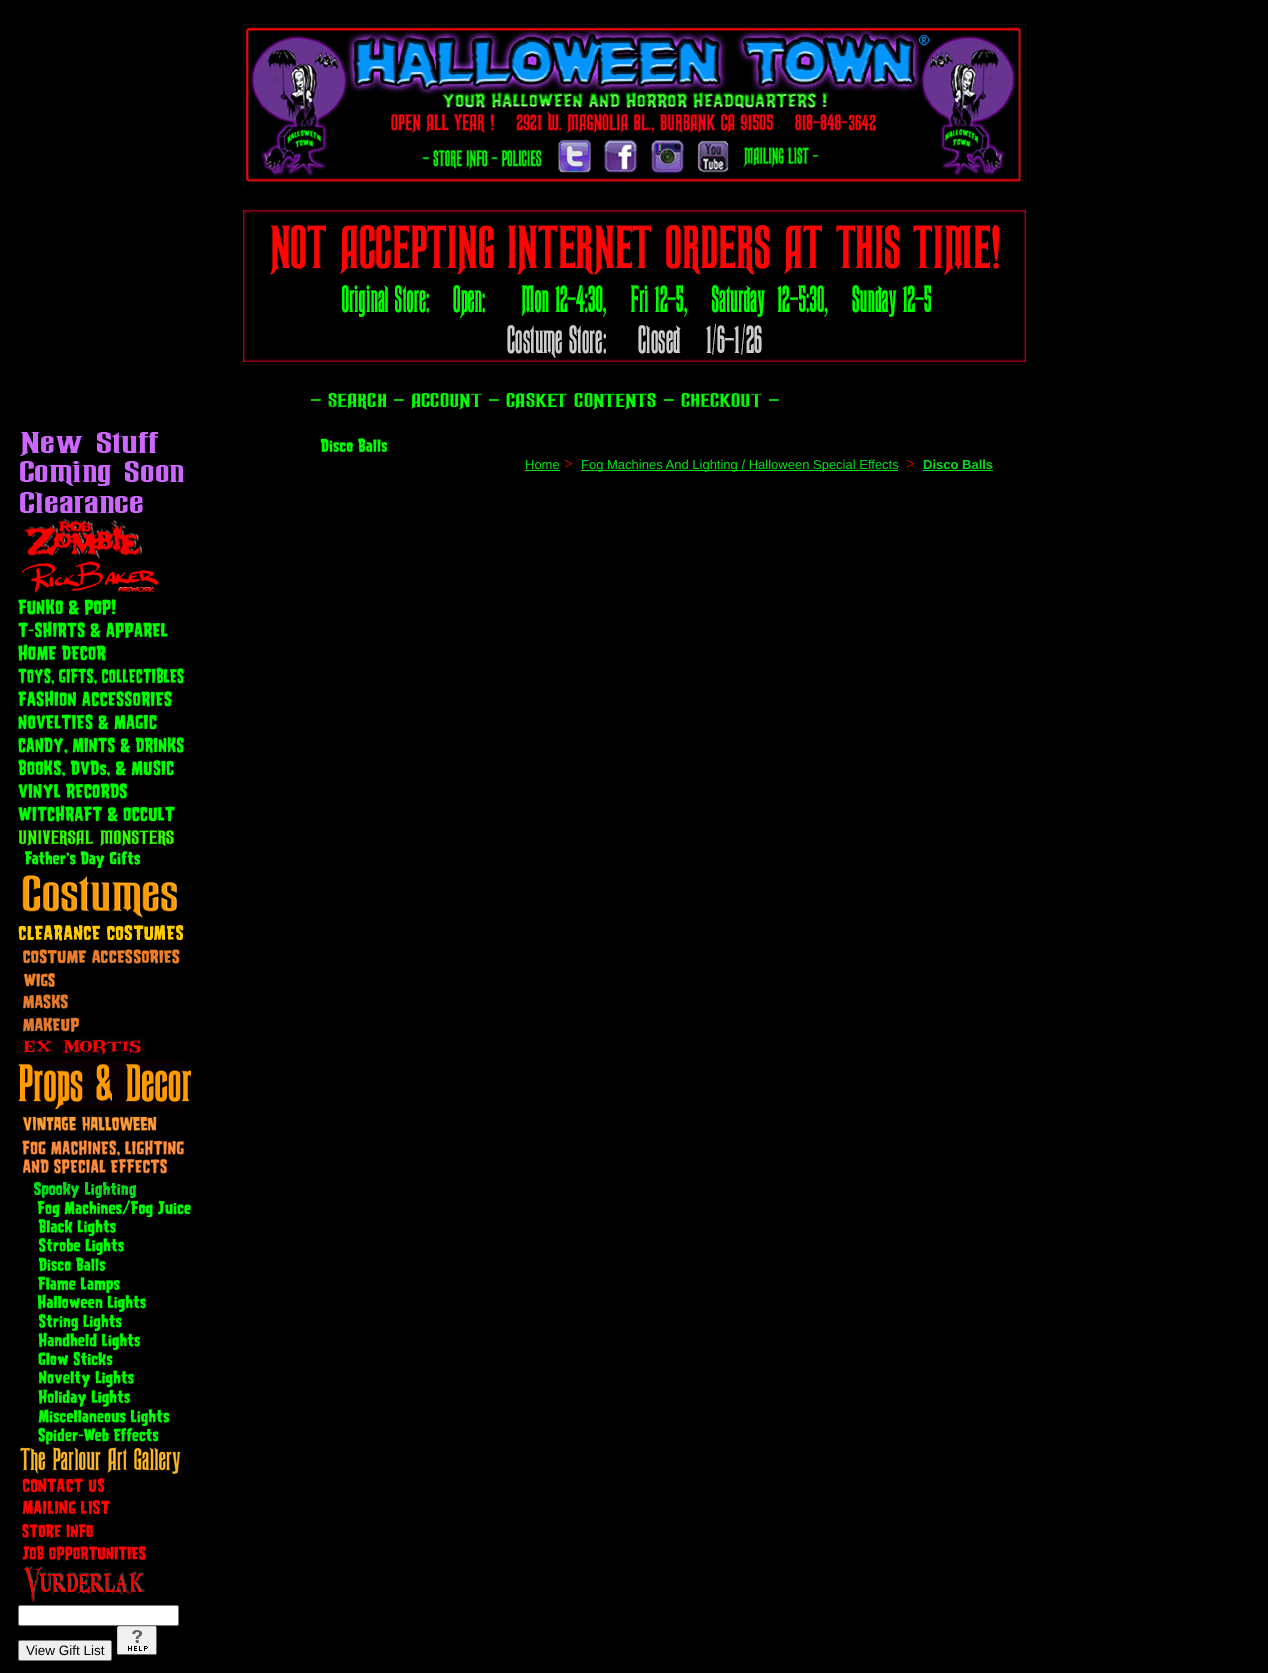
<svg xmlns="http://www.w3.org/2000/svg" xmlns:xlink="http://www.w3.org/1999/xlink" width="1268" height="1673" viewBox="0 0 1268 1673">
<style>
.cls-1{font:13px Liberation Sans;fill:#04dd1a}
.cls-2{font:16px Liberation Serif;fill:#ff0000}
.cls-3{font:bold 13px Liberation Sans;fill:#04dd1a}
.cls-4{font:13.5px Liberation Sans;fill:#000000}
</style>
<rect width="100%" height="100%" fill="#000000"/>
<image xlink:href="image0.png" x="243" y="24" width="783" height="162"/>
<image xlink:href="image1.png" x="243" y="210" width="783" height="152"/>
<image xlink:href="image2.png" x="311" y="392" width="468" height="22"/>
<image xlink:href="image3.png" x="320" y="438" width="68" height="15"/>
<rect fill="#04dd1a" x="525" y="470" width="35" height="1"/>
<rect fill="#04dd1a" x="581" y="470" width="317" height="1"/>
<rect fill="#04dd1a" x="923" y="470" width="70" height="1"/>
<image xlink:href="image4.png" x="20" y="432" width="138" height="24"/>
<image xlink:href="image5.png" x="20" y="461" width="164" height="25"/>
<image xlink:href="image6.png" x="20" y="492" width="123" height="21"/>
<image xlink:href="image7.png" x="18" y="518" width="130" height="41"/>
<image xlink:href="image8.png" x="22" y="561" width="137" height="32"/>
<image xlink:href="image9.png" x="18" y="599" width="98" height="16"/>
<image xlink:href="image10.png" x="18" y="621" width="150" height="17"/>
<image xlink:href="image11.png" x="18" y="644" width="88" height="17"/>
<image xlink:href="image12.png" x="18" y="667" width="166" height="18"/>
<image xlink:href="image13.png" x="18" y="690" width="154" height="17"/>
<image xlink:href="image14.png" x="18" y="714" width="139" height="16"/>
<image xlink:href="image15.png" x="18" y="737" width="166" height="17"/>
<image xlink:href="image16.png" x="18" y="759" width="156" height="18"/>
<image xlink:href="image17.png" x="18" y="783" width="109" height="16"/>
<image xlink:href="image18.png" x="18" y="805" width="157" height="17"/>
<image xlink:href="image19.png" x="18" y="830" width="156" height="16"/>
<image xlink:href="image20.png" x="24" y="851" width="117" height="17"/>
<image xlink:href="image21.png" x="22" y="875" width="155" height="43"/>
<image xlink:href="image22.png" x="18" y="925" width="166" height="16"/>
<image xlink:href="image23.png" x="23" y="949" width="157" height="15"/>
<image xlink:href="image24.png" x="23" y="973" width="32" height="14"/>
<image xlink:href="image25.png" x="23" y="994" width="45" height="15"/>
<image xlink:href="image26.png" x="23" y="1017" width="57" height="15"/>
<image xlink:href="image27.png" x="18" y="1036" width="128" height="24"/>
<image xlink:href="image28.png" x="18" y="1061" width="173" height="48"/>
<image xlink:href="image29.png" x="22" y="1116" width="135" height="15"/>
<image xlink:href="image30.png" x="22" y="1140" width="162" height="34"/>
<image xlink:href="image31.png" x="34" y="1181" width="102" height="17"/>
<image xlink:href="image32.png" x="37" y="1200" width="154" height="17"/>
<image xlink:href="image33.png" x="38" y="1219" width="152" height="17"/>
<image xlink:href="image34.png" x="38" y="1237" width="152" height="18"/>
<image xlink:href="image3.png" x="38" y="1257" width="68" height="15"/>
<image xlink:href="image35.png" x="38" y="1276" width="82" height="17"/>
<image xlink:href="image36.png" x="37" y="1294" width="109" height="18"/>
<image xlink:href="image37.png" x="38" y="1313" width="84" height="18"/>
<image xlink:href="image38.png" x="38" y="1332" width="103" height="18"/>
<image xlink:href="image39.png" x="38" y="1351" width="75" height="15"/>
<image xlink:href="image40.png" x="38" y="1370" width="96" height="18"/>
<image xlink:href="image41.png" x="38" y="1389" width="92" height="18"/>
<image xlink:href="image42.png" x="38" y="1409" width="132" height="17"/>
<image xlink:href="image43.png" x="38" y="1427" width="121" height="18"/>
<image xlink:href="image44.png" x="20" y="1447" width="161" height="27"/>
<image xlink:href="image45.png" x="22" y="1478" width="83" height="15"/>
<image xlink:href="image46.png" x="22" y="1500" width="88" height="14"/>
<image xlink:href="image47.png" x="22" y="1524" width="71" height="14"/>
<image xlink:href="image48.png" x="22" y="1545" width="124" height="16"/>
<image xlink:href="image49.png" x="18" y="1564" width="130" height="41"/>
<rect fill="#ffffff" stroke="#767676" x="18.5" y="1605.5" width="160" height="20" rx="1.5"/>
<rect fill="#efefef" stroke="#767676" x="18.5" y="1640.5" width="93" height="20" rx="1.5"/>
<image xlink:href="image50.png" x="117" y="1626" width="40" height="29"/>
<text class="cls-1" x="525" y="469">Home</text>
<text class="cls-2" x="564" y="469">&gt;</text>
<text class="cls-1" x="581" y="469">Fog Machines And Lighting / Halloween Special Effects</text>
<text class="cls-2" x="906" y="469">&gt;</text>
<text class="cls-3" x="923" y="469">Disco Balls</text>
<text class="cls-4" x="26" y="1655">View Gift List</text>
</svg>
